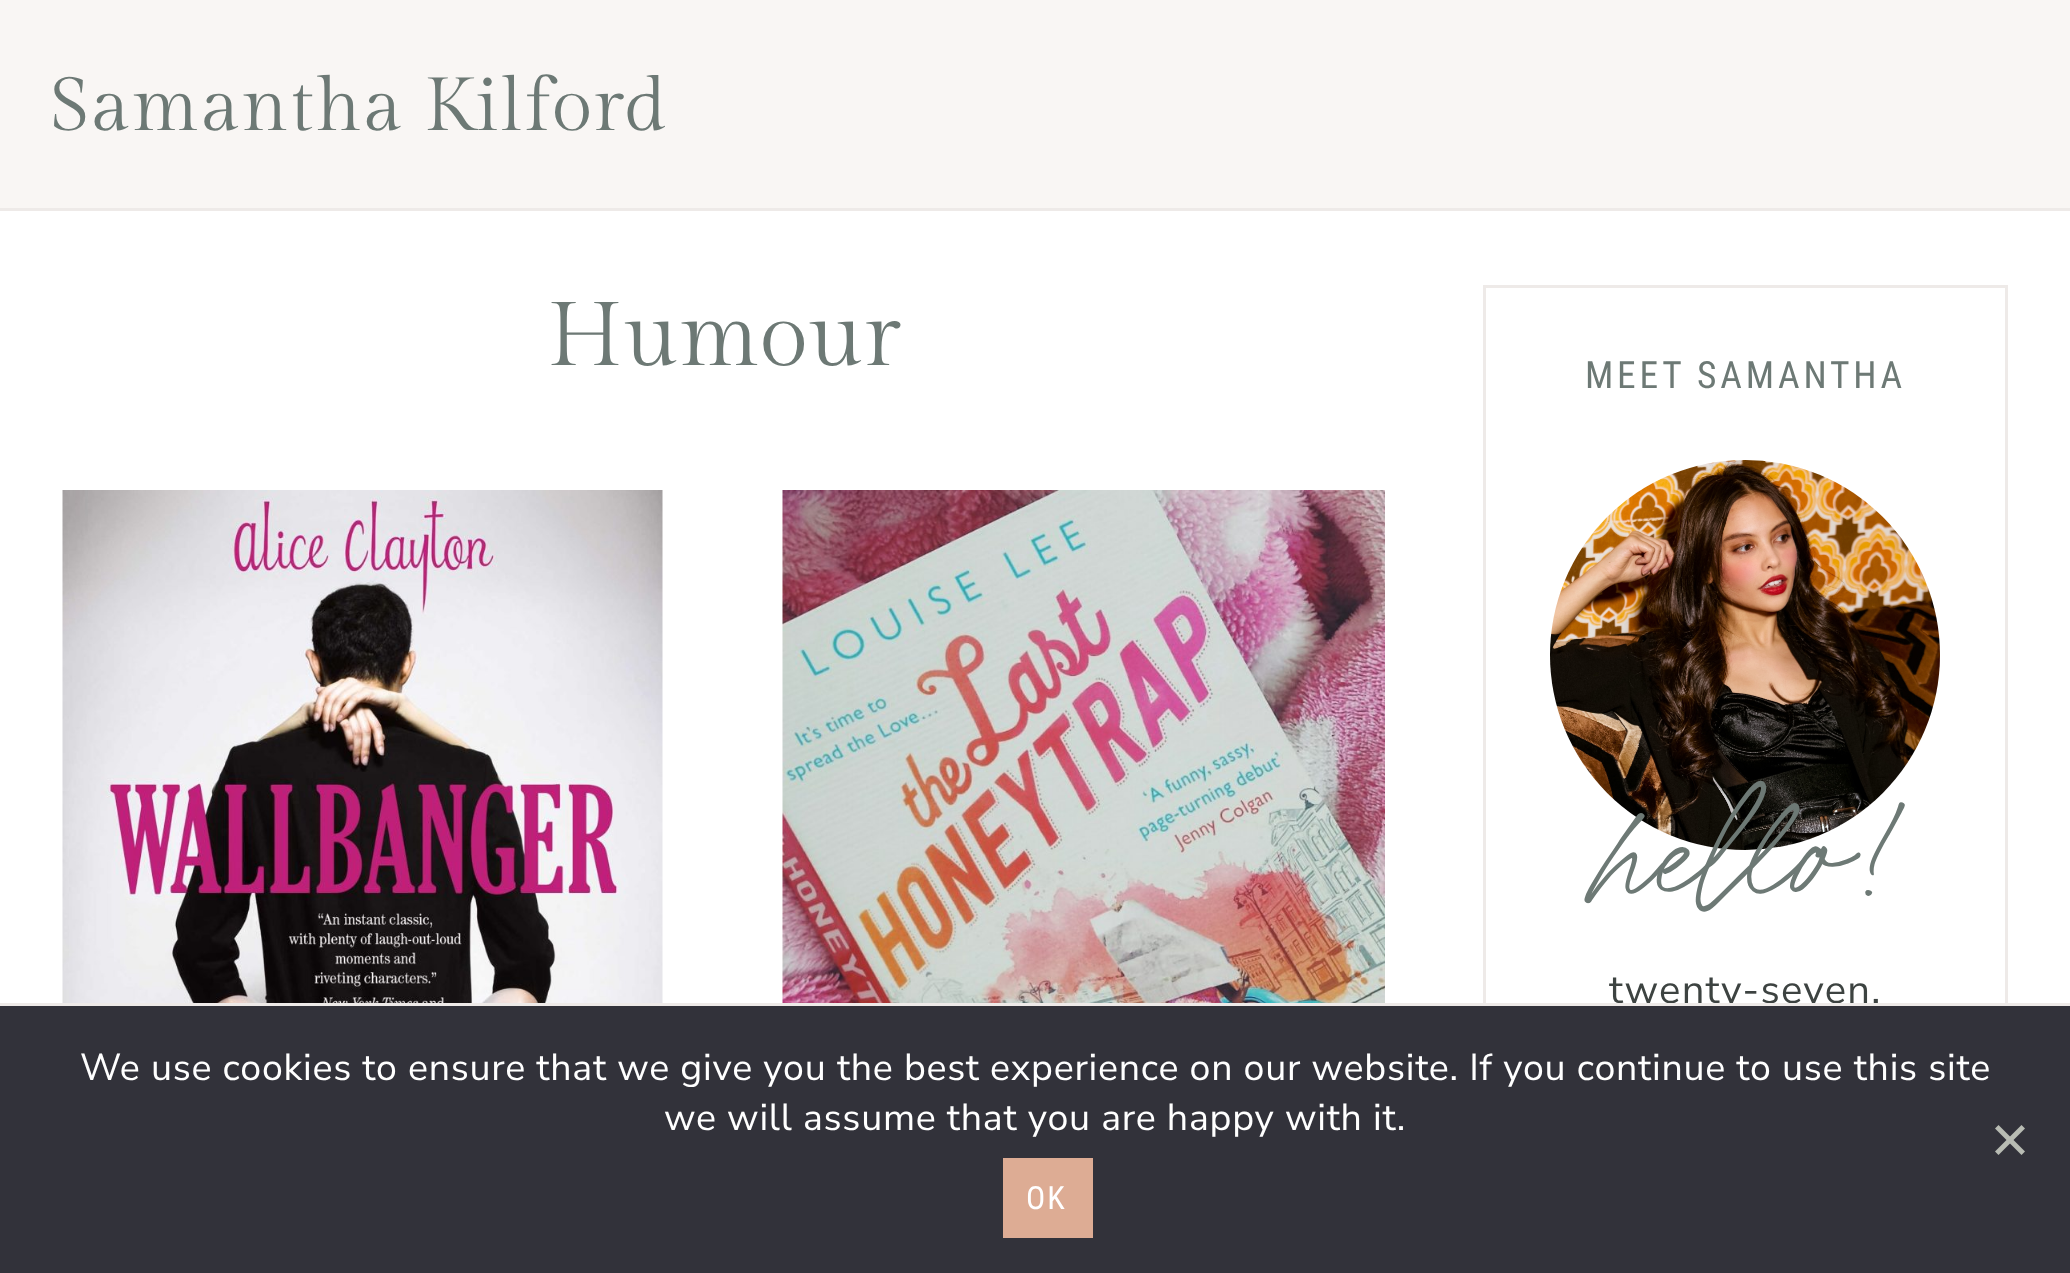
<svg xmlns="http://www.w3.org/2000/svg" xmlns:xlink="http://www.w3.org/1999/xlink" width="2070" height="1273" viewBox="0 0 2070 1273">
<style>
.cls-1{font:75px Gilda Display;letter-spacing:1.25px;fill:#6d7975}
.cls-2{font:90px Gilda Display;fill:#6d7975}
.cls-3{font:37.5px Roboto Condensed;letter-spacing:3.75px;fill:#6d7975}
.cls-4{font:150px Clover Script;fill:#6d7975}
.cls-5{font:40px Nunito Sans;letter-spacing:1.25px;fill:#3d4341}
.cls-6{font:37.5px Nunito Sans;letter-spacing:0.75px;fill:#ffffff}
.cls-7{font:32px Roboto Condensed;letter-spacing:2px;fill:#ffffff}
</style>
<rect width="100%" height="100%" fill="#ffffff"/>
<rect fill="#f9f6f4" x="0" y="0" width="2070" height="208"/>
<rect fill="#eeeae8" x="0" y="208" width="2070" height="3"/>
<image xlink:href="image0.png" x="62" y="490" width="601" height="513"/>
<image xlink:href="image1.png" x="782" y="490" width="603" height="513"/>
<rect fill="none" stroke="#eeeae8" stroke-width="3" x="1484.5" y="286.5" width="522" height="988"/>
<image xlink:href="image2.png" x="1550" y="460" width="390" height="390"/>
<text class="cls-1" x="50" y="130">Samantha Kilford</text>
<text class="cls-2" x="547" y="365">Humour</text>
<text class="cls-3" x="1585" y="388">MEET SAMANTHA</text>
<text class="cls-4" x="1595" y="905">hello!</text>
<text class="cls-5" x="1609" y="1003">twenty-seven.</text>
<rect fill="#32323a" x="0" y="1006" width="2070" height="267"/>
<rect fill="#eeeae8" x="0" y="1003" width="2070" height="3"/>
<text class="cls-6" x="80" y="1080">We use cookies to ensure that we give you the best experience on our website. If you continue to use this site</text>
<text class="cls-6" x="664" y="1130">we will assume that you are happy with it.</text>
<path fill="#b8bcb3" d="M2021.5 1125L2025 1128.5L1998.5 1155L1995 1151.5Z"/>
<path fill="#b8bcb3" d="M1995 1128.5L1998.5 1125L2025 1151.5L2021.5 1155Z"/>
<rect fill="#ddac94" x="1003" y="1158" width="90" height="80"/>
<text class="cls-7" x="1026" y="1209">OK</text>
</svg>
